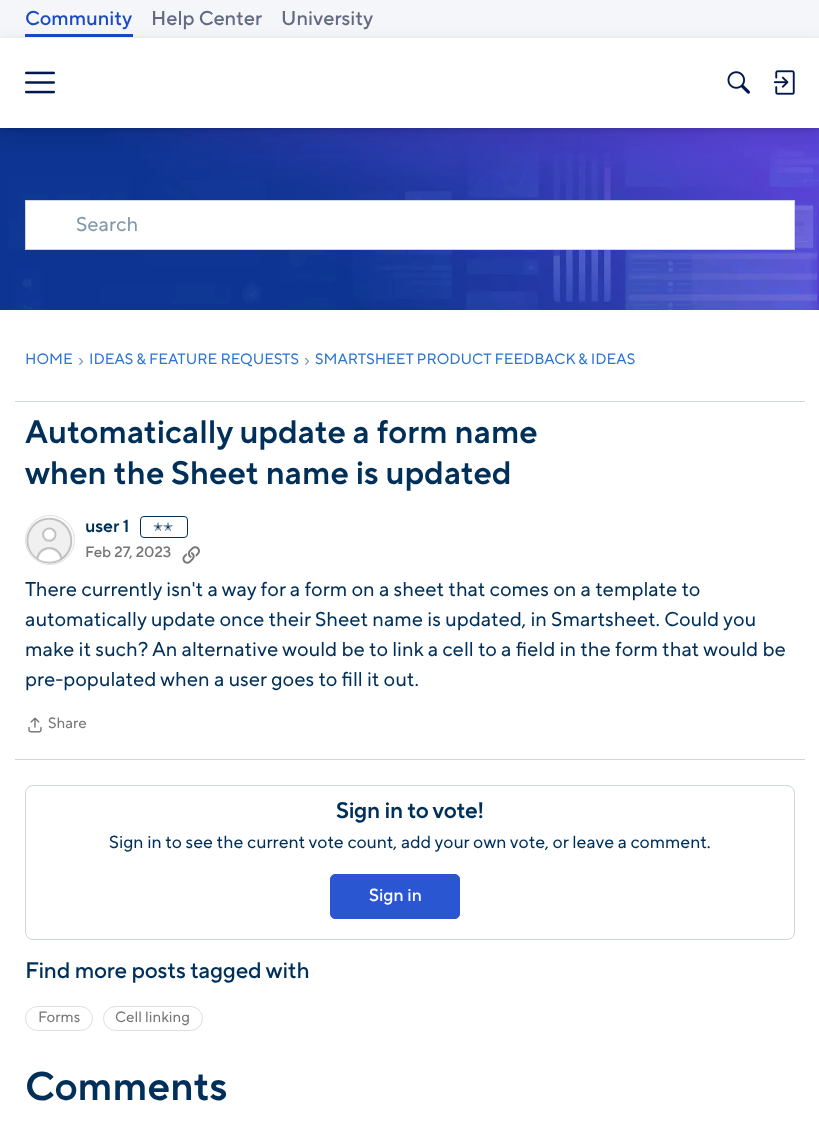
<svg xmlns="http://www.w3.org/2000/svg" xmlns:xlink="http://www.w3.org/1999/xlink" width="819" height="1136" viewBox="0 0 819 1136">
<style>
.cls-1{font:500 20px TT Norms;fill:#184bc3}
.cls-2{font:500 20px TT Norms;fill:#626b83}
.cls-3{font:20px TT Norms;fill:#8098ac}
.cls-4{font:15px TT Norms;fill:#2a75d1}
.cls-5{font:17.5px Liberation Sans;fill:#8098ac}
.cls-6{font:600 32.5px TT Norms;fill:#003059}
.cls-7{font:600 17.5px TT Norms;fill:#003059}
.cls-8{font:12px DejaVu Sans;fill:#003059}
.cls-9{font:500 15px TT Norms;fill:#767676}
.cls-10{font:20px TT Norms;fill:#003059}
.cls-11{font:15px TT Norms;fill:#767676}
.cls-12{font:600 22.5px TT Norms;letter-spacing:-0.3px;fill:#003059}
.cls-13{font:17.5px TT Norms;fill:#003059}
.cls-14{font:500 17.5px TT Norms;fill:#ffffff}
.cls-15{font:500 22.5px TT Norms;letter-spacing:-0.2px;fill:#003059}
.cls-16{font:600 40px TT Norms;fill:#003059}
</style>
<rect width="100%" height="100%" fill="#ffffff"/>
<rect fill="#f5f6fa" x="0" y="0" width="819" height="38"/>
<rect fill="#184bc3" x="25" y="34" width="108" height="3"/>
<image xlink:href="image3.png" x="0" y="128" width="819" height="182"/>
<rect fill="#000000" fill-opacity="0.1" filter="blur(10px)" x="0" y="45" width="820" height="90"/>
<rect fill="#000000" fill-opacity="0.12" filter="blur(2.5px)" x="0" y="40" width="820" height="90"/>
<rect fill="#ffffff" x="0" y="38" width="819" height="90"/>
<image xlink:href="image0.png" x="25" y="71" width="30" height="23"/>
<image xlink:href="image1.png" x="727" y="71" width="23" height="23"/>
<image xlink:href="image2.png" x="773" y="70" width="22" height="25"/>
<rect fill="#ffffff" stroke="#ccd6de" x="25.5" y="200.5" width="769" height="49"/>
<rect fill="#ccd6de" x="15" y="401" width="790" height="1"/>
<circle fill="none" stroke="#d9e0e6" cx="50" cy="540" r="24.5"/>
<image xlink:href="image4.png" x="26" y="517" width="47" height="47"/>
<rect fill="none" stroke="#003059" x="140.5" y="516.5" width="47" height="21" rx="3.5"/>
<image xlink:href="image5.png" x="182" y="546" width="18" height="18"/>
<image xlink:href="image6.png" x="28" y="717" width="14" height="16"/>
<rect fill="#ccd6de" x="15" y="759" width="790" height="1"/>
<rect fill="none" stroke="#ccd6de" x="25.5" y="785.5" width="769" height="154" rx="7.5"/>
<rect fill="#2a57d1" stroke="#2a57d1" x="330.5" y="874.5" width="129" height="44" rx="4.5"/>
<rect fill="none" stroke="#dddee0" x="25.5" y="1006.5" width="67" height="24" rx="12"/>
<rect fill="none" stroke="#dddee0" x="103.5" y="1006.5" width="99" height="24" rx="12"/>
<text class="cls-1" x="25" y="25">Community</text>
<text class="cls-2" x="151" y="25">Help Center</text>
<text class="cls-2" x="281" y="25">University</text>
<text class="cls-3" x="76" y="231">Search</text>
<text class="cls-4" x="25" y="364">HOME</text>
<text class="cls-5" x="78" y="366">›</text>
<text class="cls-4" x="89" y="364">IDEAS &amp; FEATURE REQUESTS</text>
<text class="cls-5" x="304" y="366">›</text>
<text class="cls-4" x="315" y="364">SMARTSHEET PRODUCT FEEDBACK &amp; IDEAS</text>
<text class="cls-6"><tspan x="25" y="443">Automatically update a form name</tspan><tspan x="25" y="484">when the Sheet name is updated</tspan></text>
<text class="cls-7" x="85" y="532">user 1</text>
<text class="cls-8" x="153" y="531">✭✭</text>
<text class="cls-9" x="85" y="557">Feb 27, 2023</text>
<text class="cls-10"><tspan x="25" y="596">There currently isn't a way for a form on a sheet that comes on a template to</tspan><tspan x="25" y="626">automatically update once their Sheet name is updated, in Smartsheet. Could you</tspan><tspan x="25" y="656">make it such? An alternative would be to link a cell to a field in the form that would be</tspan><tspan x="25" y="686">pre-populated when a user goes to fill it out.</tspan></text>
<text class="cls-11" x="48" y="728">Share</text>
<text class="cls-12" x="336" y="818">Sign in to vote!</text>
<text class="cls-13" x="109" y="848">Sign in to see the current vote count, add your own vote, or leave a comment.</text>
<text class="cls-14" x="369" y="901">Sign in</text>
<text class="cls-15" x="25" y="978">Find more posts tagged with</text>
<text class="cls-11" x="38" y="1022">Forms</text>
<text class="cls-11" x="115" y="1022">Cell linking</text>
<text class="cls-16" x="25" y="1100">Comments</text>
</svg>
